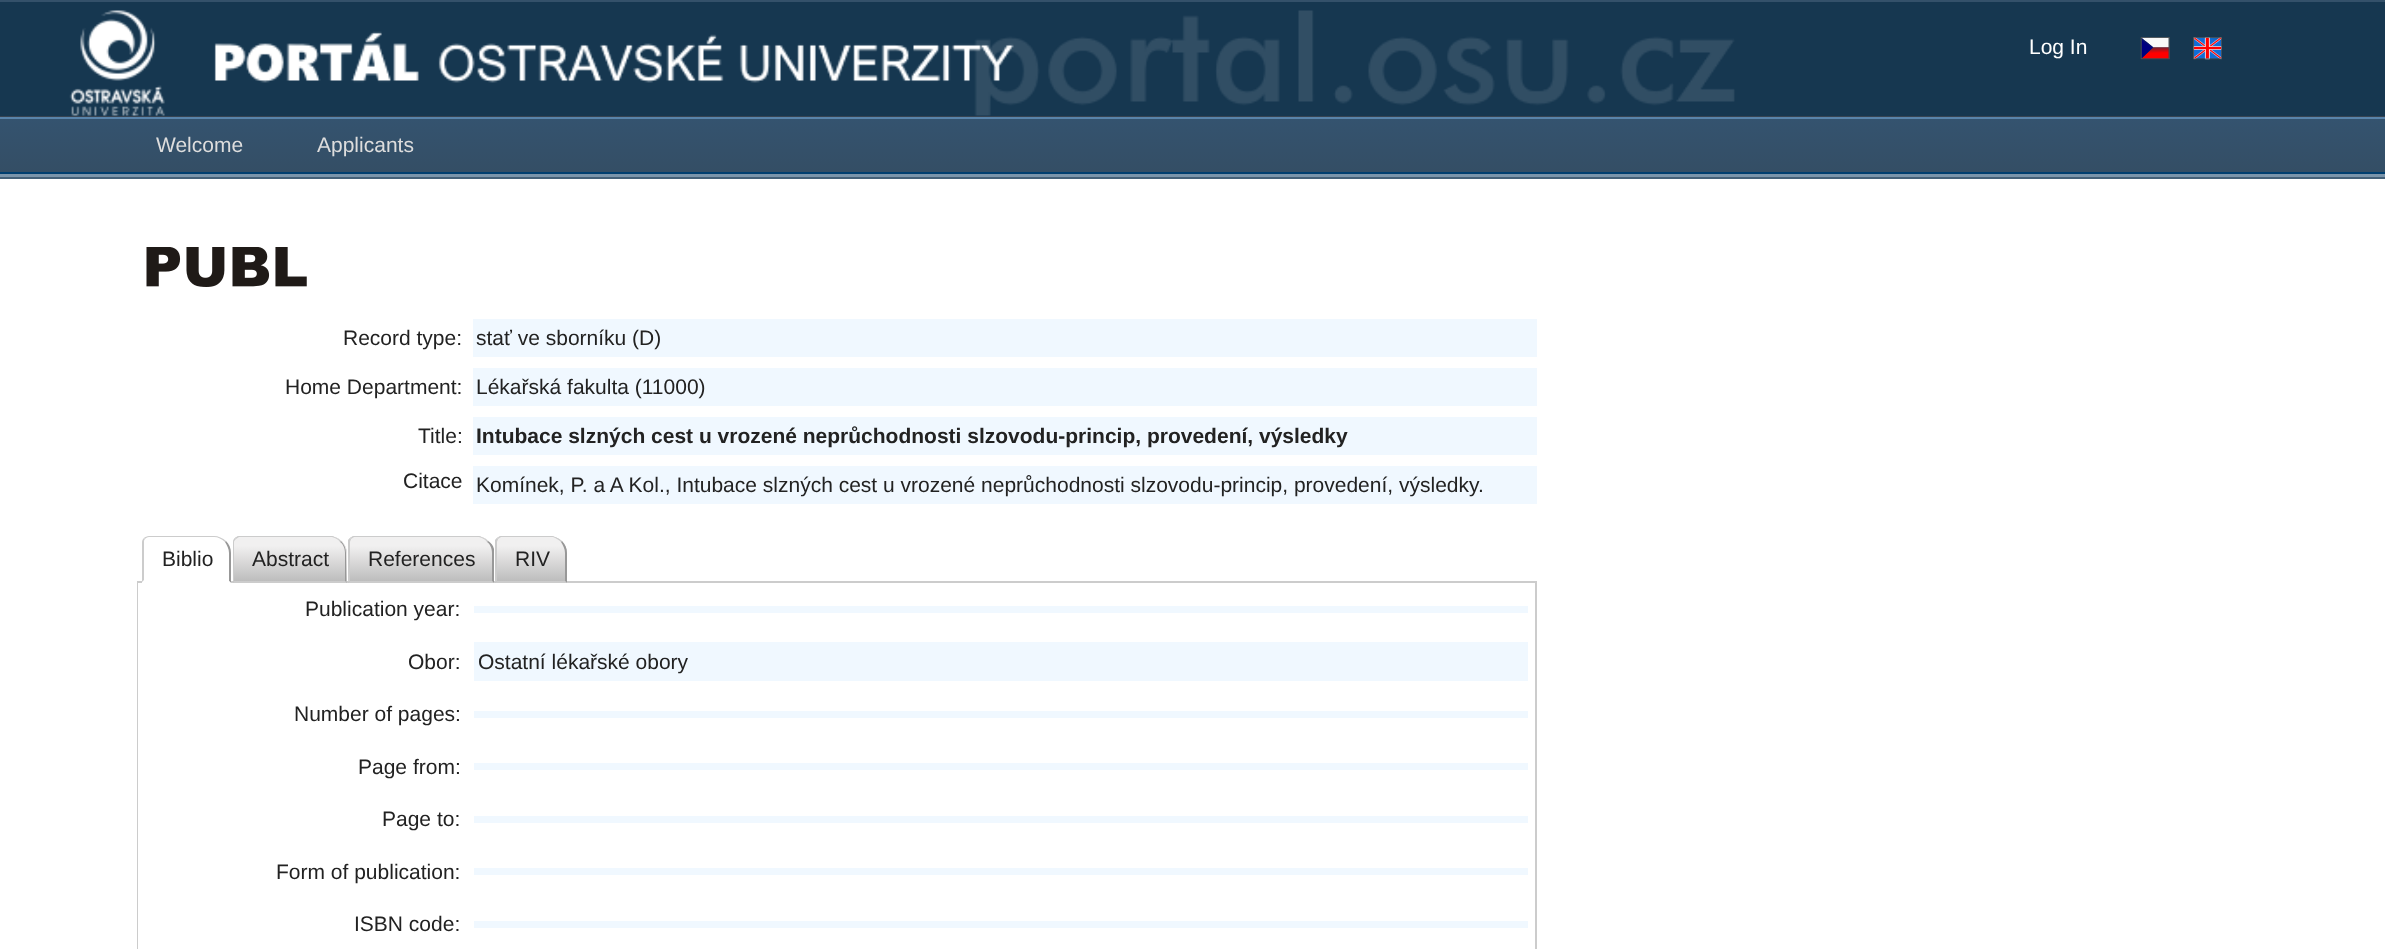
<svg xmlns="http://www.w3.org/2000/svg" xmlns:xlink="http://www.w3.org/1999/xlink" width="2385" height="949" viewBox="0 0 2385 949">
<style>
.cls-1{font:21px Liberation Sans;fill:#ffffff}
.cls-2{font:21px Liberation Sans;fill:#dddddd}
.cls-3{font:21px Liberation Sans;fill:#222222}
.cls-4{font:bold 21px Liberation Sans;fill:#222222}
</style>
<defs>
<linearGradient id="g1" gradientUnits="userSpaceOnUse" x1="1193" y1="119" x2="1193" y2="172"><stop offset="0" stop-color="#34536f"/><stop offset="1" stop-color="#344e65"/></linearGradient>
<clipPath id="clip1"><path d="M240 536H329C339 536 347 544 347 554V583H233V543C233 539 236 536 240 536Z"/></clipPath>
<linearGradient id="g2" gradientUnits="userSpaceOnUse" x1="290" y1="581" x2="290" y2="537"><stop offset="0" stop-color="#bdbdbd"/><stop offset="0.8" stop-color="#f1f0f0"/></linearGradient>
<clipPath id="clip2"><path d="M355 536H476C486 536 494 544 494 554V583H348V543C348 539 351 536 355 536Z"/></clipPath>
<linearGradient id="g3" gradientUnits="userSpaceOnUse" x1="421" y1="581" x2="421" y2="537"><stop offset="0" stop-color="#bdbdbd"/><stop offset="0.8" stop-color="#f1f0f0"/></linearGradient>
<clipPath id="clip3"><path d="M502 536H549C559 536 567 544 567 554V583H495V543C495 539 498 536 502 536Z"/></clipPath>
<linearGradient id="g4" gradientUnits="userSpaceOnUse" x1="531" y1="581" x2="531" y2="537"><stop offset="0" stop-color="#bdbdbd"/><stop offset="0.8" stop-color="#f1f0f0"/></linearGradient>
</defs>
<rect width="100%" height="100%" fill="#163750"/>
<image xlink:href="image0.png" x="69" y="10" width="1666" height="106"/>
<rect fill="#34516a" x="0" y="0" width="2385" height="2"/>
<rect fill="#374452" x="0" y="116" width="2385" height="1"/>
<image xlink:href="image1.png" x="2140" y="37" width="30" height="23"/>
<image xlink:href="image2.png" x="2193" y="37" width="29" height="23"/>
<rect fill="#7b95ab" x="0" y="174" width="2385" height="3"/>
<rect fill="#446179" x="0" y="177" width="2385" height="2"/>
<rect fill="url(#g1)" x="0" y="119" width="2385" height="53"/>
<rect fill="#5984ab" x="0" y="117" width="2385" height="2"/>
<rect fill="#003f70" x="0" y="172" width="2385" height="2"/>
<rect fill="#ffffff" x="0" y="179" width="2385" height="770"/>
<image xlink:href="image3.png" x="146" y="247" width="161" height="40"/>
<rect fill="#f0f8ff" x="473" y="319" width="1064" height="38"/>
<rect fill="#f0f8ff" x="473" y="368" width="1064" height="38"/>
<rect fill="#f0f8ff" x="473" y="417" width="1064" height="38"/>
<rect fill="#f0f8ff" x="473" y="466" width="1064" height="38"/>
<rect fill="#cccccc" x="137" y="581" width="1400" height="2"/>
<path fill="#ffffff" d="M149 536H213C223 536 231 544 231 554V583H142V543C142 539 145 536 149 536Z"/>
<path fill="#cccccc" d="M149 536C147 536 145 537 144 538L145 539C146 538 147 537 149 537H214C218 537 222 539 225 542L226 541C223 538 218 536 214 536Z"/>
<path fill="#989898" d="M226 541C229 544 231 548 231 553V583L229 581V553C229 549 227 545 225 542Z"/>
<path fill="#ffffff" d="M231 583H142L144 580V581H229Z"/>
<path fill="#cccccc" d="M144 538C143 539 142 540 142 542V582L144 580V542C144 541 144 540 145 539Z"/>
<path fill="#bdbdbd" d="M240 536H329C339 536 347 544 347 554V583H233V543C233 539 236 536 240 536Z"/>
<g clip-path="url(#clip1)">
<rect fill="url(#g2)" x="233" y="537" width="114" height="44"/>
</g>
<path fill="#cccccc" d="M240 536C238 536 236 537 235 538L236 539L239 537H332C335 538 338 539 340 542L341 541C338 538 334 536 329 536Z"/>
<path fill="#989898" d="M346 582V553C346 548 344 544 341 541L340 542C343 544 345 548 345 553V581Z"/>
<path fill="#cccccc" d="M233 583L234 581H345L346 582V583Z"/>
<path fill="#cccccc" d="M235 538C234 539 233 540 233 542V582L234 581V542C234 541 235 540 236 539Z"/>
<path fill="#bdbdbd" d="M355 536H476C486 536 494 544 494 554V583H348V543C348 539 351 536 355 536Z"/>
<g clip-path="url(#clip2)">
<rect fill="url(#g3)" x="348" y="537" width="146" height="44"/>
</g>
<path fill="#cccccc" d="M355 536C353 536 352 537 350 538L351 539L354 537H479C482 538 485 539 487 542L488 541C485 538 481 536 476 536Z"/>
<path fill="#989898" d="M488 541C491 543 493 545 494 549V583L492 581V553C492 548 490 544 487 542Z"/>
<path fill="#cccccc" d="M494 583L492 581H350L348 583Z"/>
<path fill="#cccccc" d="M348 583L350 581V542C350 541 351 540 351 539L350 538L348 540Z"/>
<path fill="#bdbdbd" d="M502 536H549C559 536 567 544 567 554V583H495V543C495 539 498 536 502 536Z"/>
<g clip-path="url(#clip3)">
<rect fill="url(#g4)" x="495" y="537" width="72" height="44"/>
</g>
<path fill="#cccccc" d="M502 536C500 536 499 537 497 538L498 539L501 537H553C556 538 559 540 561 542L562 541C559 538 554 536 550 536Z"/>
<path fill="#989898" d="M562 541C565 544 567 548 567 553V583L565 581V553C565 549 563 545 561 542Z"/>
<path fill="#cccccc" d="M567 583L565 581H497L495 583Z"/>
<path fill="#cccccc" d="M495 583L497 581V542C497 541 498 540 498 539L497 538L495 540Z"/>
<rect fill="#cccccc" x="1535" y="583" width="2" height="366"/>
<rect fill="#cccccc" x="137" y="583" width="1" height="366"/>
<rect fill="#f0f8ff" x="474" y="606" width="1054" height="7"/>
<rect fill="#f0f8ff" x="474" y="642" width="1054" height="39"/>
<rect fill="#f0f8ff" x="474" y="711" width="1054" height="7"/>
<rect fill="#f0f8ff" x="474" y="763" width="1054" height="7"/>
<rect fill="#f0f8ff" x="474" y="816" width="1054" height="7"/>
<rect fill="#f0f8ff" x="474" y="868" width="1054" height="7"/>
<rect fill="#f0f8ff" x="474" y="921" width="1054" height="7"/>
<text class="cls-1" x="2029" y="54">Log In</text>
<text class="cls-2" x="156" y="152">Welcome</text>
<text class="cls-2" x="317" y="152">Applicants</text>
<text class="cls-3" x="343" y="345">Record type:</text>
<text class="cls-3" x="476" y="345">stať ve sborníku (D)</text>
<text class="cls-3" x="285" y="394">Home Department:</text>
<text class="cls-3" x="476" y="394">Lékařská fakulta (11000)</text>
<text class="cls-3" x="418" y="443">Title:</text>
<text class="cls-4" x="476" y="443">Intubace slzných cest u vrozené neprůchodnosti slzovodu-princip, provedení, výsledky</text>
<text class="cls-3" x="403" y="488">Citace</text>
<text class="cls-3" x="476" y="492">Komínek, P. a A Kol., Intubace slzných cest u vrozené neprůchodnosti slzovodu-princip, provedení, výsledky.</text>
<text class="cls-3" x="162" y="566">Biblio</text>
<text class="cls-3" x="252" y="566">Abstract</text>
<text class="cls-3" x="368" y="566">References</text>
<text class="cls-3" x="515" y="566">RIV</text>
<text class="cls-3" x="305" y="616">Publication year:</text>
<text class="cls-3" x="408" y="669">Obor:</text>
<text class="cls-3" x="478" y="669">Ostatní lékařské obory</text>
<text class="cls-3" x="294" y="721">Number of pages:</text>
<text class="cls-3" x="358" y="774">Page from:</text>
<text class="cls-3" x="382" y="826">Page to:</text>
<text class="cls-3" x="276" y="879">Form of publication:</text>
<text class="cls-3" x="354" y="931">ISBN code:</text>
</svg>
